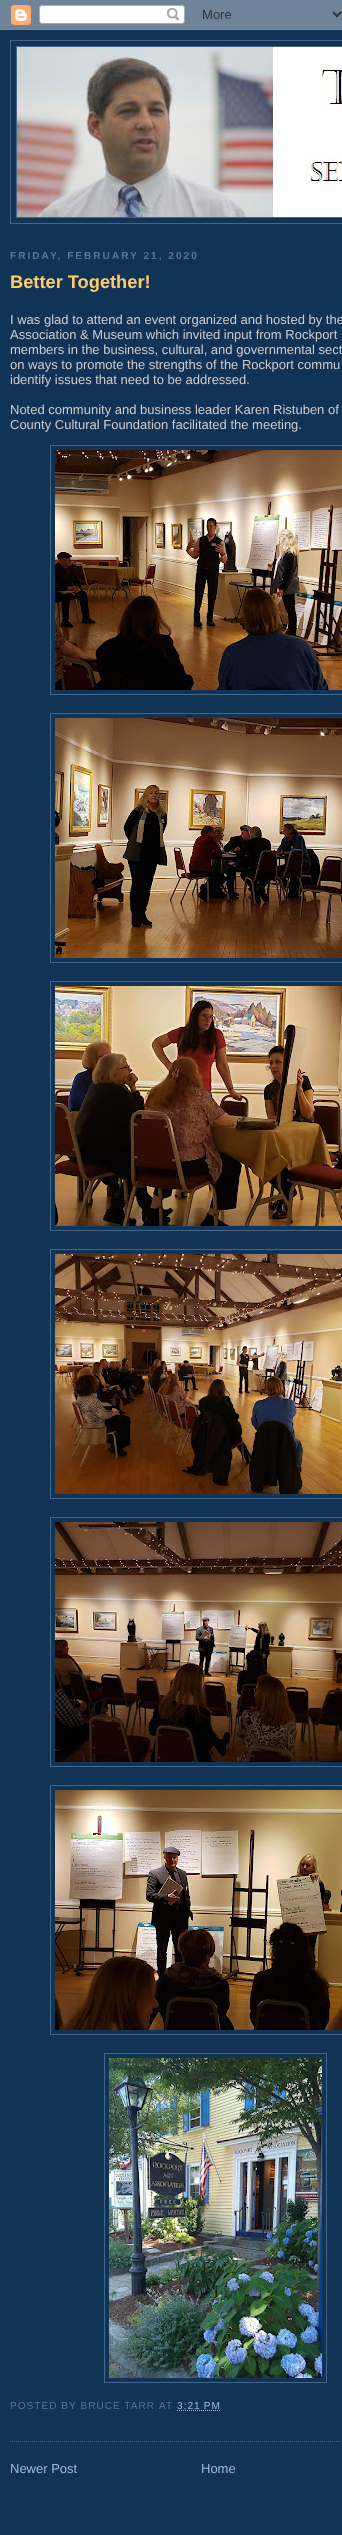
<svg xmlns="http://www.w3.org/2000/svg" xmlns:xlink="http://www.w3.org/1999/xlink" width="342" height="2535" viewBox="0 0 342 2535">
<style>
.cls-1{font:bold 10.1px Liberation Sans;letter-spacing:2px;fill:#557799}
.cls-2{font:bold 18.25px Liberation Sans;fill:#ffcc66}
.cls-3{font:13px Liberation Sans;fill:#cccccc}
.cls-4{font:10.1px Liberation Sans;letter-spacing:1px;fill:#557799}
.cls-5{font:10.1px Liberation Sans;letter-spacing:1px;fill:#99bbdd}
.cls-6{font:13px Liberation Sans;fill:#99bbdd}
</style>
<rect width="100%" height="100%" fill="#113355"/>
<image xlink:href="image0.png" x="0" y="0" width="342" height="30"/>
<rect fill="none" stroke="#446688" x="10.5" y="40.5" width="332" height="183"/>
<rect fill="none" stroke="#446688" x="16.5" y="46.5" width="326" height="171"/>
<image xlink:href="image1.png" x="17" y="47" width="325" height="170"/>
<path fill="none" stroke="#446688" stroke-dasharray="1 1" d="M10 2441.5H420"/>
<rect fill="none" stroke="#446688" x="50.5" y="445.5" width="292" height="249"/>
<image xlink:href="image2.png" x="55" y="450" width="287" height="240"/>
<rect fill="none" stroke="#446688" x="50.5" y="713.5" width="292" height="249"/>
<image xlink:href="image3.png" x="55" y="718" width="287" height="240"/>
<rect fill="none" stroke="#446688" x="50.5" y="981.5" width="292" height="249"/>
<image xlink:href="image4.png" x="55" y="986" width="287" height="240"/>
<rect fill="none" stroke="#446688" x="50.5" y="1249.5" width="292" height="249"/>
<image xlink:href="image5.png" x="55" y="1254" width="287" height="240"/>
<rect fill="none" stroke="#446688" x="50.5" y="1517.5" width="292" height="249"/>
<image xlink:href="image6.png" x="55" y="1522" width="287" height="240"/>
<rect fill="none" stroke="#446688" x="50.5" y="1785.5" width="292" height="249"/>
<image xlink:href="image7.png" x="55" y="1790" width="287" height="240"/>
<rect fill="none" stroke="#446688" x="104.5" y="2053.5" width="222" height="329"/>
<image xlink:href="image8.png" x="109" y="2058" width="213" height="320"/>
<path fill="none" stroke="#99bbdd" stroke-dasharray="1 1" d="M177 2410.5H221"/>
<text class="cls-1" x="10" y="259">FRIDAY, FEBRUARY 21, 2020</text>
<text class="cls-2" x="10" y="288">Better Together!</text>
<text class="cls-3"><tspan x="10" y="324">I was glad to attend an event organized and hosted by the</tspan><tspan x="10" y="339">Association &amp; Museum which invited input from Rockport</tspan><tspan x="10" y="354">members in the business, cultural, and governmental sect</tspan><tspan x="10" y="369">on ways to promote the strengths of the Rockport commu</tspan><tspan x="10" y="384">identify issues that need to be addressed.</tspan></text>
<text class="cls-3"><tspan x="10" y="414">Noted community and business leader Karen Ristuben of</tspan><tspan x="10" y="429">County Cultural Foundation facilitated the meeting.</tspan></text>
<text class="cls-4" x="10" y="2409">POSTED BY BRUCE TARR</text>
<text class="cls-4" x="159" y="2409">AT</text>
<text class="cls-5" x="177" y="2409">3:21 PM</text>
<text class="cls-6" x="10" y="2473">Newer Post</text>
<text class="cls-6" x="201" y="2473">Home</text>
</svg>
